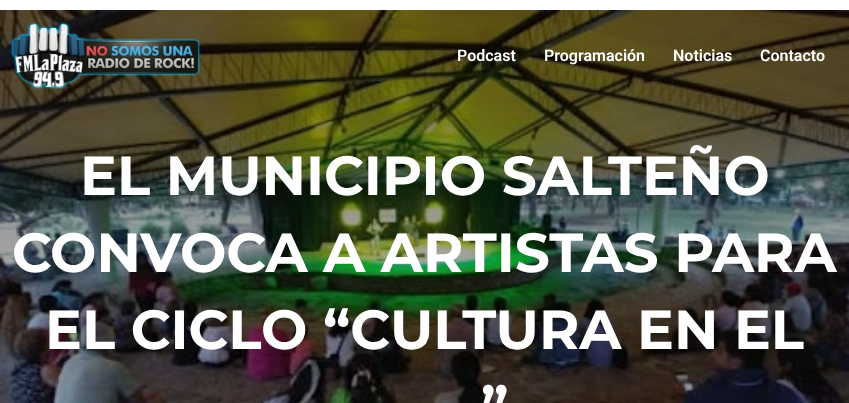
<svg xmlns="http://www.w3.org/2000/svg" xmlns:xlink="http://www.w3.org/1999/xlink" width="849" height="403" viewBox="0 0 849 403">
<style>
.cls-1{font:600 16px Roboto;fill:#ffffff}
.cls-2{font:bold 55px Montserrat;fill:#ffffff}
</style>
<rect width="100%" height="100%" fill="#ffffff"/>
<image xlink:href="image1.png" x="0" y="10" width="849" height="393"/>
<image xlink:href="image0.png" x="10" y="22" width="191" height="68"/>
<text class="cls-1" x="457" y="61">Podcast</text>
<text class="cls-1" x="544" y="61">Programación</text>
<text class="cls-1" x="673" y="61">Noticias</text>
<text class="cls-1" x="760" y="61">Contacto</text>
<text class="cls-2" x="80" y="195">EL MUNICIPIO SALTEÑO</text>
<text class="cls-2" x="12" y="272">CONVOCA A ARTISTAS PARA</text>
<text class="cls-2" x="45" y="349">EL CICLO “CULTURA EN EL</text>
<text class="cls-2" x="481" y="426">”</text>
</svg>
